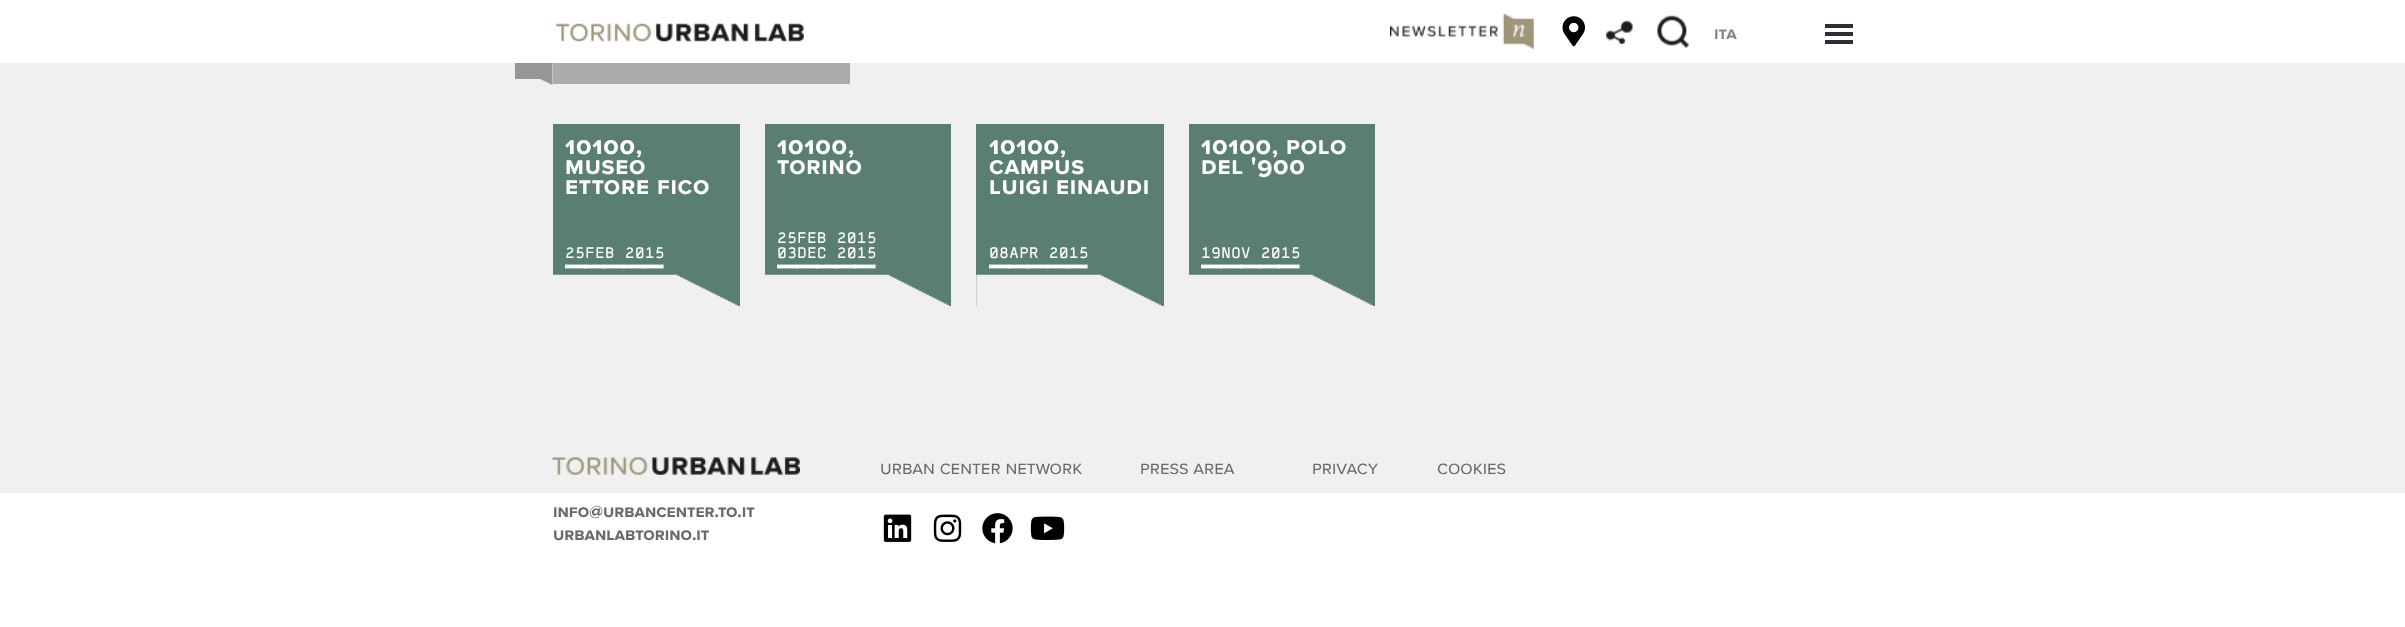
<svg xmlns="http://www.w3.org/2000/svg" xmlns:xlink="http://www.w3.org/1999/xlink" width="2405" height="627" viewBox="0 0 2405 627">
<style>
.cls-1{font:bold 17.5px 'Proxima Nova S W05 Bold';fill:#87878b}
.cls-2{font:bold 25px 'Proxima Nova S W05 Bold';letter-spacing:0.75px;fill:#ffffff}
.cls-3{font:15px 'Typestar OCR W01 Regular';fill:#ffffff}
.cls-4{font:bold 30px 'Typestar OCR W01 Regular';letter-spacing:-0.5px;fill:#ffffff}
.cls-5{font:18.75px 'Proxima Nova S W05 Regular';fill:#69696e}
.cls-6{font:bold 17.5px 'Proxima Nova S W05 Bold';fill:#69696e}
</style>
<rect width="100%" height="100%" fill="#f0f0f0"/>
<path fill="#969696" d="M515 47.5H552.5V85L540 79H515Z"/>
<rect fill="#ffffff" x="0" y="0" width="2405" height="63"/>
<image xlink:href="image0.png" x="556" y="23" width="248" height="19"/>
<image xlink:href="image1.png" x="1390" y="13" width="144" height="36"/>
<image xlink:href="image2.png" x="1562" y="16" width="23" height="31"/>
<image xlink:href="image3.png" x="1606" y="20" width="27" height="24"/>
<image xlink:href="image4.png" x="1657" y="15" width="32" height="33"/>
<rect fill="#2b2e34" x="1825" y="24" width="28" height="4"/>
<rect fill="#2b2e34" x="1825" y="32" width="28" height="4"/>
<rect fill="#2b2e34" x="1825" y="40" width="28" height="4"/>
<rect fill="#ababab" x="553" y="63" width="297" height="21"/>
<rect fill="#5a7f71" x="553" y="124" width="187" height="182"/>
<image xlink:href="image5.png" x="553" y="274" width="185" height="32"/>
<rect fill="#5a7f71" x="765" y="124" width="186" height="182"/>
<image xlink:href="image6.png" x="765" y="274" width="184" height="32"/>
<rect fill="#5a7f71" x="976" y="124" width="188" height="182"/>
<image xlink:href="image7.png" x="976" y="274" width="186" height="32"/>
<rect fill="#5a7f71" x="1189" y="124" width="186" height="182"/>
<image xlink:href="image8.png" x="1189" y="274" width="184" height="32"/>
<image xlink:href="image9.png" x="552" y="457" width="248" height="18"/>
<rect fill="#ffffff" x="0" y="493" width="2405" height="134"/>
<image xlink:href="image10.png" x="883" y="514" width="29" height="28"/>
<image xlink:href="image11.png" x="933" y="514" width="29" height="28"/>
<image xlink:href="image12.png" x="982" y="513" width="31" height="31"/>
<image xlink:href="image13.png" x="1030" y="516" width="35" height="24"/>
<text class="cls-1" x="1714" y="39">ita</text>
<text class="cls-2"><tspan x="565" y="154">10100,</tspan><tspan x="565" y="174">museo</tspan><tspan x="565" y="194">ettore fico</tspan></text>
<text class="cls-3" x="565" y="258">25FEB 2015</text>
<text class="cls-4" x="565" y="278">—————</text>
<text class="cls-2"><tspan x="777" y="154">10100,</tspan><tspan x="777" y="174">torino</tspan></text>
<text class="cls-3"><tspan x="777" y="243">25FEB 2015</tspan><tspan x="777" y="258">03DEC 2015</tspan></text>
<text class="cls-4" x="777" y="278">—————</text>
<text class="cls-2"><tspan x="989" y="154">10100,</tspan><tspan x="989" y="174">campus</tspan><tspan x="989" y="194">luigi einaudi</tspan></text>
<text class="cls-3" x="989" y="258">08APR 2015</text>
<text class="cls-4" x="989" y="278">—————</text>
<text class="cls-2"><tspan x="1201" y="154">10100, polo</tspan><tspan x="1201" y="174">del '900</tspan></text>
<text class="cls-3" x="1201" y="258">19NOV 2015</text>
<text class="cls-4" x="1201" y="278">—————</text>
<text class="cls-5" x="880" y="474">urban center network</text>
<text class="cls-5" x="1140" y="474">press area</text>
<text class="cls-5" x="1312" y="474">privacy</text>
<text class="cls-5" x="1437" y="474">cookies</text>
<text class="cls-6"><tspan x="553" y="517">info@urbancenter.to.it</tspan><tspan x="553" y="540">urbanlabtorino.it</tspan></text>
</svg>
